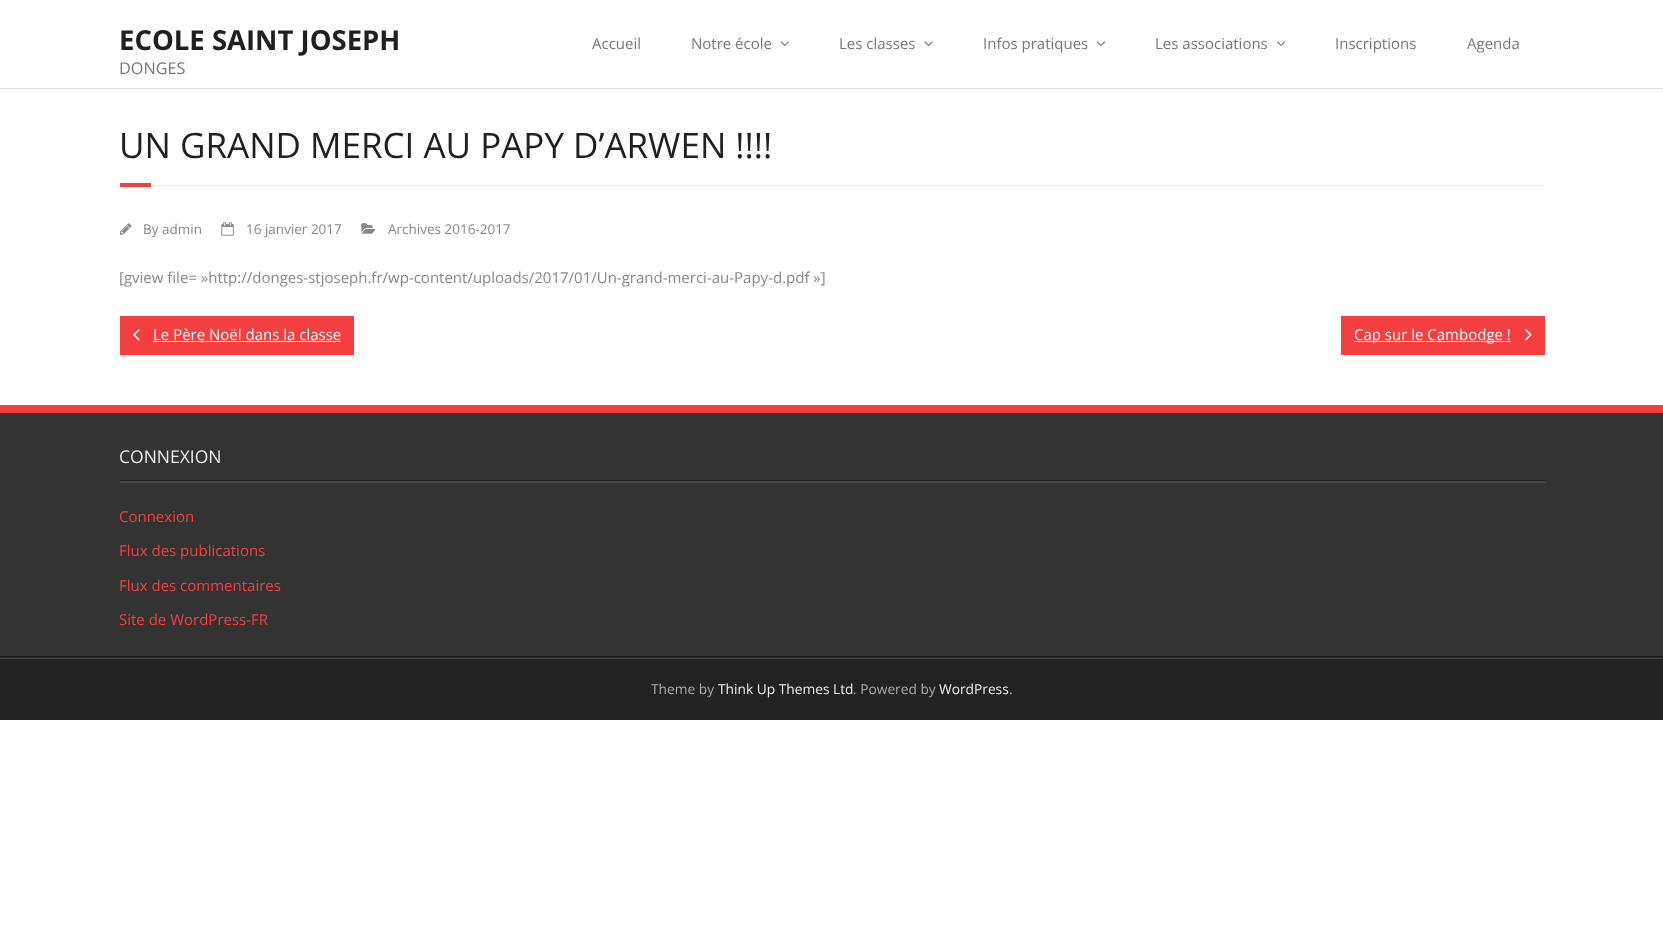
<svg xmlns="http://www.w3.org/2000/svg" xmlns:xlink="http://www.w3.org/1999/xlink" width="1663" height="936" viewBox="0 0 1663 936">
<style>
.cls-1{font:bold 27.5px Open Sans;fill:#202020}
.cls-2{font:16.25px Open Sans;fill:#777777}
.cls-3{font:15px Open Sans;fill:#777777}
.cls-4{font:35px Open Sans;fill:#202020}
.cls-5{font:13.5px Open Sans;fill:#888888}
.cls-6{font:15px Open Sans;fill:#888888}
.cls-7{font:15px Open Sans;fill:#ffffff}
.cls-8{font:17.5px Open Sans;fill:#eeeeee}
.cls-9{font:15px Open Sans;fill:#f33f3f}
.cls-10{font:13.75px Open Sans;fill:#aaaaaa}
.cls-11{font:13.75px Open Sans;fill:#eeeeee}
</style>
<rect width="100%" height="100%" fill="#ffffff"/>
<rect fill="#e0e0e0" x="0" y="88" width="1663" height="1"/>
<image xlink:href="image0.png" x="780" y="41" width="9" height="6"/>
<image xlink:href="image1.png" x="924" y="41" width="9" height="6"/>
<image xlink:href="image2.png" x="1097" y="41" width="9" height="6"/>
<image xlink:href="image2.png" x="1277" y="41" width="9" height="6"/>
<rect fill="#f33f3f" x="120" y="183" width="31" height="4"/>
<rect fill="#eeeeee" x="151" y="185" width="1394" height="1"/>
<image xlink:href="image3.png" x="120" y="223" width="12" height="12"/>
<image xlink:href="image4.png" x="221" y="222" width="13" height="14"/>
<image xlink:href="image5.png" x="361" y="223" width="15" height="11"/>
<rect fill="#f33f3f" x="120" y="316" width="234" height="39"/>
<image xlink:href="image6.png" x="133" y="329" width="7" height="12"/>
<rect fill="#ffffff" x="153" y="341" width="188" height="1"/>
<rect fill="#f33f3f" x="1341" y="316" width="204" height="39"/>
<rect fill="#ffffff" x="1354" y="341" width="157" height="1"/>
<image xlink:href="image7.png" x="1525" y="329" width="7" height="12"/>
<rect fill="#333333" x="0" y="413" width="1663" height="245"/>
<rect fill="#f33f3f" x="0" y="405" width="1663" height="8"/>
<rect fill="#111111" x="0" y="656" width="1663" height="1"/>
<rect fill="#444444" x="120" y="481" width="1425" height="2"/>
<rect fill="#222222" x="120" y="480" width="1425" height="1"/>
<rect fill="#222222" x="0" y="659" width="1663" height="61"/>
<rect fill="#444444" x="0" y="658" width="1663" height="1"/>
<text class="cls-1" x="119" y="50">ECOLE SAINT JOSEPH</text>
<text class="cls-2" x="119" y="74">DONGES</text>
<text class="cls-3" x="592" y="49">Accueil</text>
<text class="cls-3" x="691" y="49">Notre école</text>
<text class="cls-3" x="839" y="49">Les classes</text>
<text class="cls-3" x="983" y="49">Infos pratiques</text>
<text class="cls-3" x="1155" y="49">Les associations</text>
<text class="cls-3" x="1335" y="49">Inscriptions</text>
<text class="cls-3" x="1467" y="49">Agenda</text>
<text class="cls-4" x="119" y="158">UN GRAND MERCI AU PAPY D’ARWEN !!!!</text>
<text class="cls-5" x="143" y="234">By admin</text>
<text class="cls-5" x="246" y="234">16 janvier 2017</text>
<text class="cls-5" x="388" y="234">Archives 2016-2017</text>
<text class="cls-6" x="119" y="283">[gview file= »http://donges-stjoseph.fr/wp-content/uploads/2017/01/Un-grand-merci-au-Papy-d.pdf »]</text>
<text class="cls-7" x="153" y="340">Le Père Noël dans la classe</text>
<text class="cls-7" x="1354" y="340">Cap sur le Cambodge !</text>
<text class="cls-8" x="119" y="463">CONNEXION</text>
<text class="cls-9" x="119" y="522">Connexion</text>
<text class="cls-9" x="119" y="556">Flux des publications</text>
<text class="cls-9" x="119" y="591">Flux des commentaires</text>
<text class="cls-9" x="119" y="625">Site de WordPress-FR</text>
<text class="cls-10" x="651" y="694">Theme by</text>
<text class="cls-11" x="718" y="694">Think Up Themes Ltd</text>
<text class="cls-10" x="853" y="694">. Powered by</text>
<text class="cls-11" x="939" y="694">WordPress</text>
<text class="cls-10" x="1009" y="694">.</text>
</svg>
